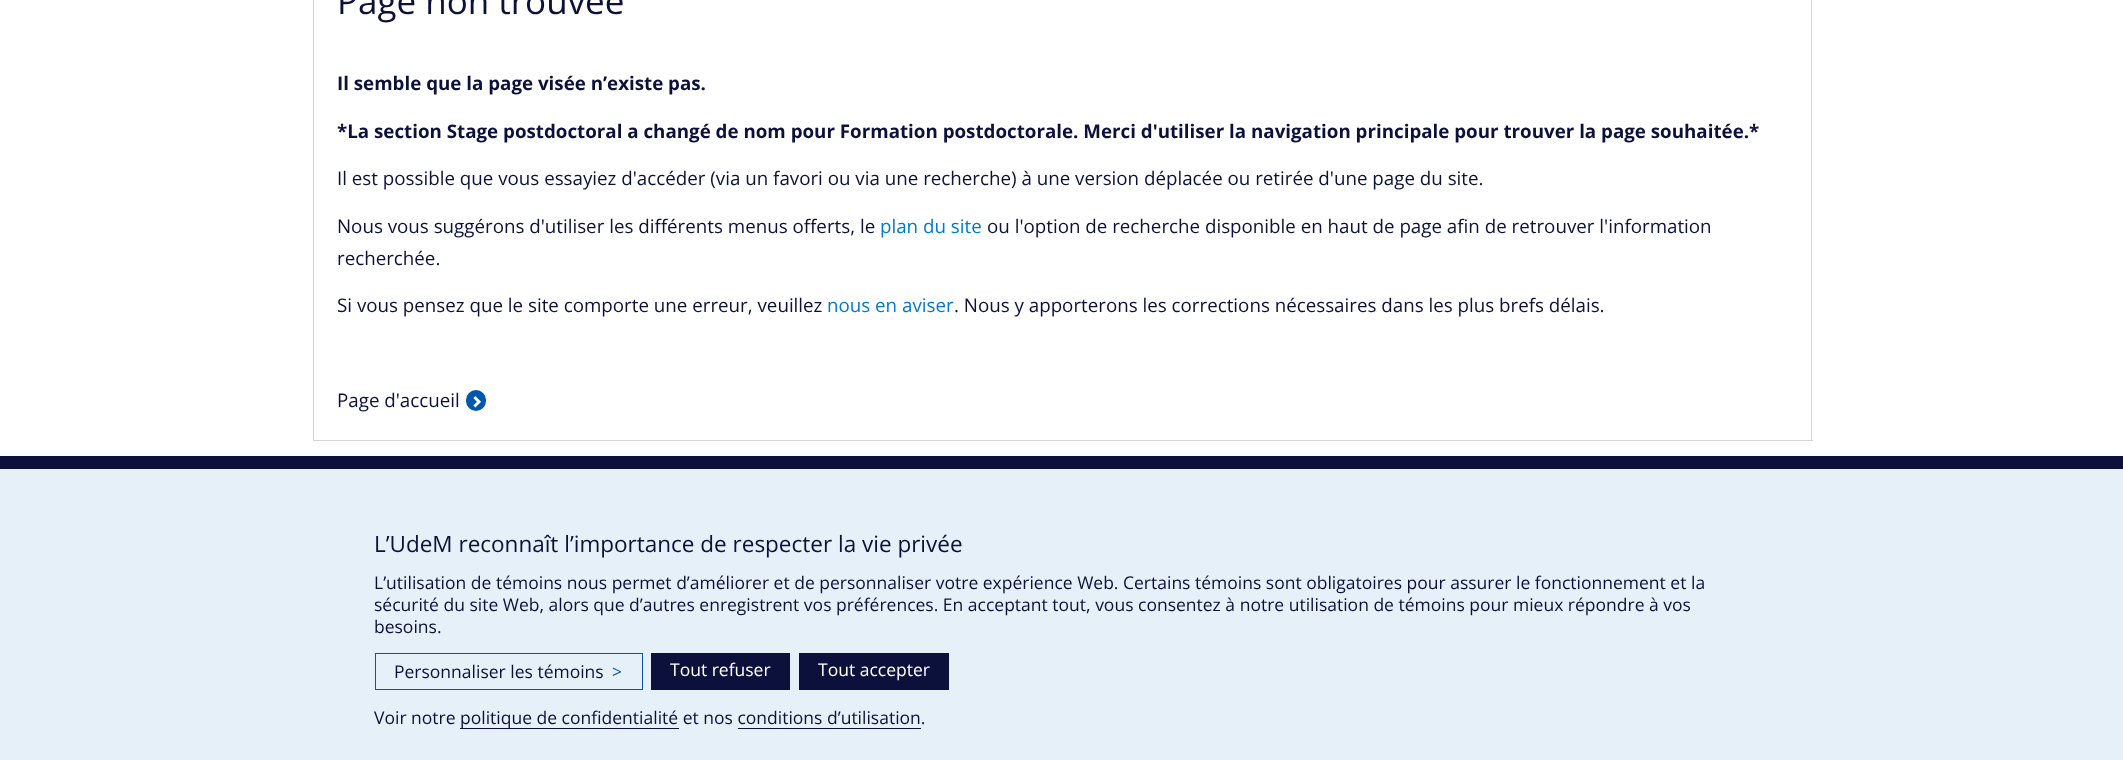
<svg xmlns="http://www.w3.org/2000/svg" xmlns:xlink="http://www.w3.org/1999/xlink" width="2123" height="760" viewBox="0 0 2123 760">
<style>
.cls-1{font:35px Open Sans;fill:#0b113a}
.cls-2{font:bold 18.75px Open Sans;fill:#0b113a}
.cls-3{font:18.75px Open Sans;fill:#0b113a}
.cls-4{font:18.75px Open Sans;fill:#007acc}
.cls-5{font:22.5px Open Sans;fill:#0b113a}
.cls-6{font:17.5px Open Sans;fill:#0b113a}
.cls-7{font:17.5px Open Sans;fill:#0057ac}
.cls-8{font:17.5px Open Sans;fill:#ffffff}
</style>
<rect width="100%" height="100%" fill="#ffffff"/>
<rect fill="#d4d4d4" x="1811" y="0" width="1" height="441"/>
<rect fill="#d4d4d4" x="313" y="0" width="1" height="68"/>
<rect fill="#d4d4d4" x="313" y="440" width="1500" height="1"/>
<rect fill="#d4d4d4" x="313" y="68" width="1" height="373"/>
<rect fill="#0057ac" x="466" y="390" width="20" height="21" rx="10"/>
<image xlink:href="image0.png" x="473" y="396" width="8" height="12"/>
<rect fill="#e5f0f8" x="0" y="469" width="2123" height="291"/>
<rect fill="#0b113a" x="0" y="456" width="2123" height="13"/>
<rect fill="none" stroke="#0057ac" x="375.5" y="653.5" width="267" height="36"/>
<rect fill="#0b113a" x="651" y="653" width="139" height="37"/>
<rect fill="#0b113a" x="799" y="653" width="150" height="37"/>
<rect fill="#0b113a" x="460" y="728" width="219" height="1"/>
<rect fill="#0b113a" x="738" y="728" width="183" height="1"/>
<text class="cls-1" x="337" y="14">Page non trouvée</text>
<text class="cls-2" x="337" y="90">Il semble que la page visée n’existe pas.</text>
<text class="cls-2" x="337" y="138">*La section Stage postdoctoral a changé de nom pour Formation postdoctorale. Merci d'utiliser la navigation principale pour trouver la page souhaitée.*</text>
<text class="cls-3" x="337" y="185">Il est possible que vous essayiez d'accéder (via un favori ou via une recherche) à une version déplacée ou retirée d'une page du site.</text>
<text class="cls-3" x="337" y="233">Nous vous suggérons d'utiliser les différents menus offerts, le</text>
<text class="cls-4" x="880" y="233">plan du site</text>
<text class="cls-3" x="987" y="233">ou l'option de recherche disponible en haut de page afin de retrouver l'information</text>
<text class="cls-3" x="337" y="265">recherchée.</text>
<text class="cls-3" x="337" y="312">Si vous pensez que le site comporte une erreur, veuillez</text>
<text class="cls-4" x="827" y="312">nous en aviser</text>
<text class="cls-3" x="954" y="312">. Nous y apporterons les corrections nécessaires dans les plus brefs délais.</text>
<text class="cls-3" x="337" y="407">Page d'accueil</text>
<text class="cls-5" x="374" y="552">L’UdeM reconnaît l’importance de respecter la vie privée</text>
<text class="cls-6"><tspan x="374" y="589">L’utilisation de témoins nous permet d’améliorer et de personnaliser votre expérience Web. Certains témoins sont obligatoires pour assurer le fonctionnement et la</tspan><tspan x="374" y="611">sécurité du site Web, alors que d’autres enregistrent vos préférences. En acceptant tout, vous consentez à notre utilisation de témoins pour mieux répondre à vos</tspan><tspan x="374" y="633">besoins.</tspan></text>
<text class="cls-6" x="394" y="678">Personnaliser les témoins</text>
<text class="cls-7" x="612" y="678">&gt;</text>
<text class="cls-8" x="670" y="676">Tout refuser</text>
<text class="cls-8" x="818" y="676">Tout accepter</text>
<text class="cls-6" x="374" y="724">Voir notre</text>
<text class="cls-6" x="460" y="724">politique de confidentialité et nos conditions d’utilisation.</text>
</svg>
